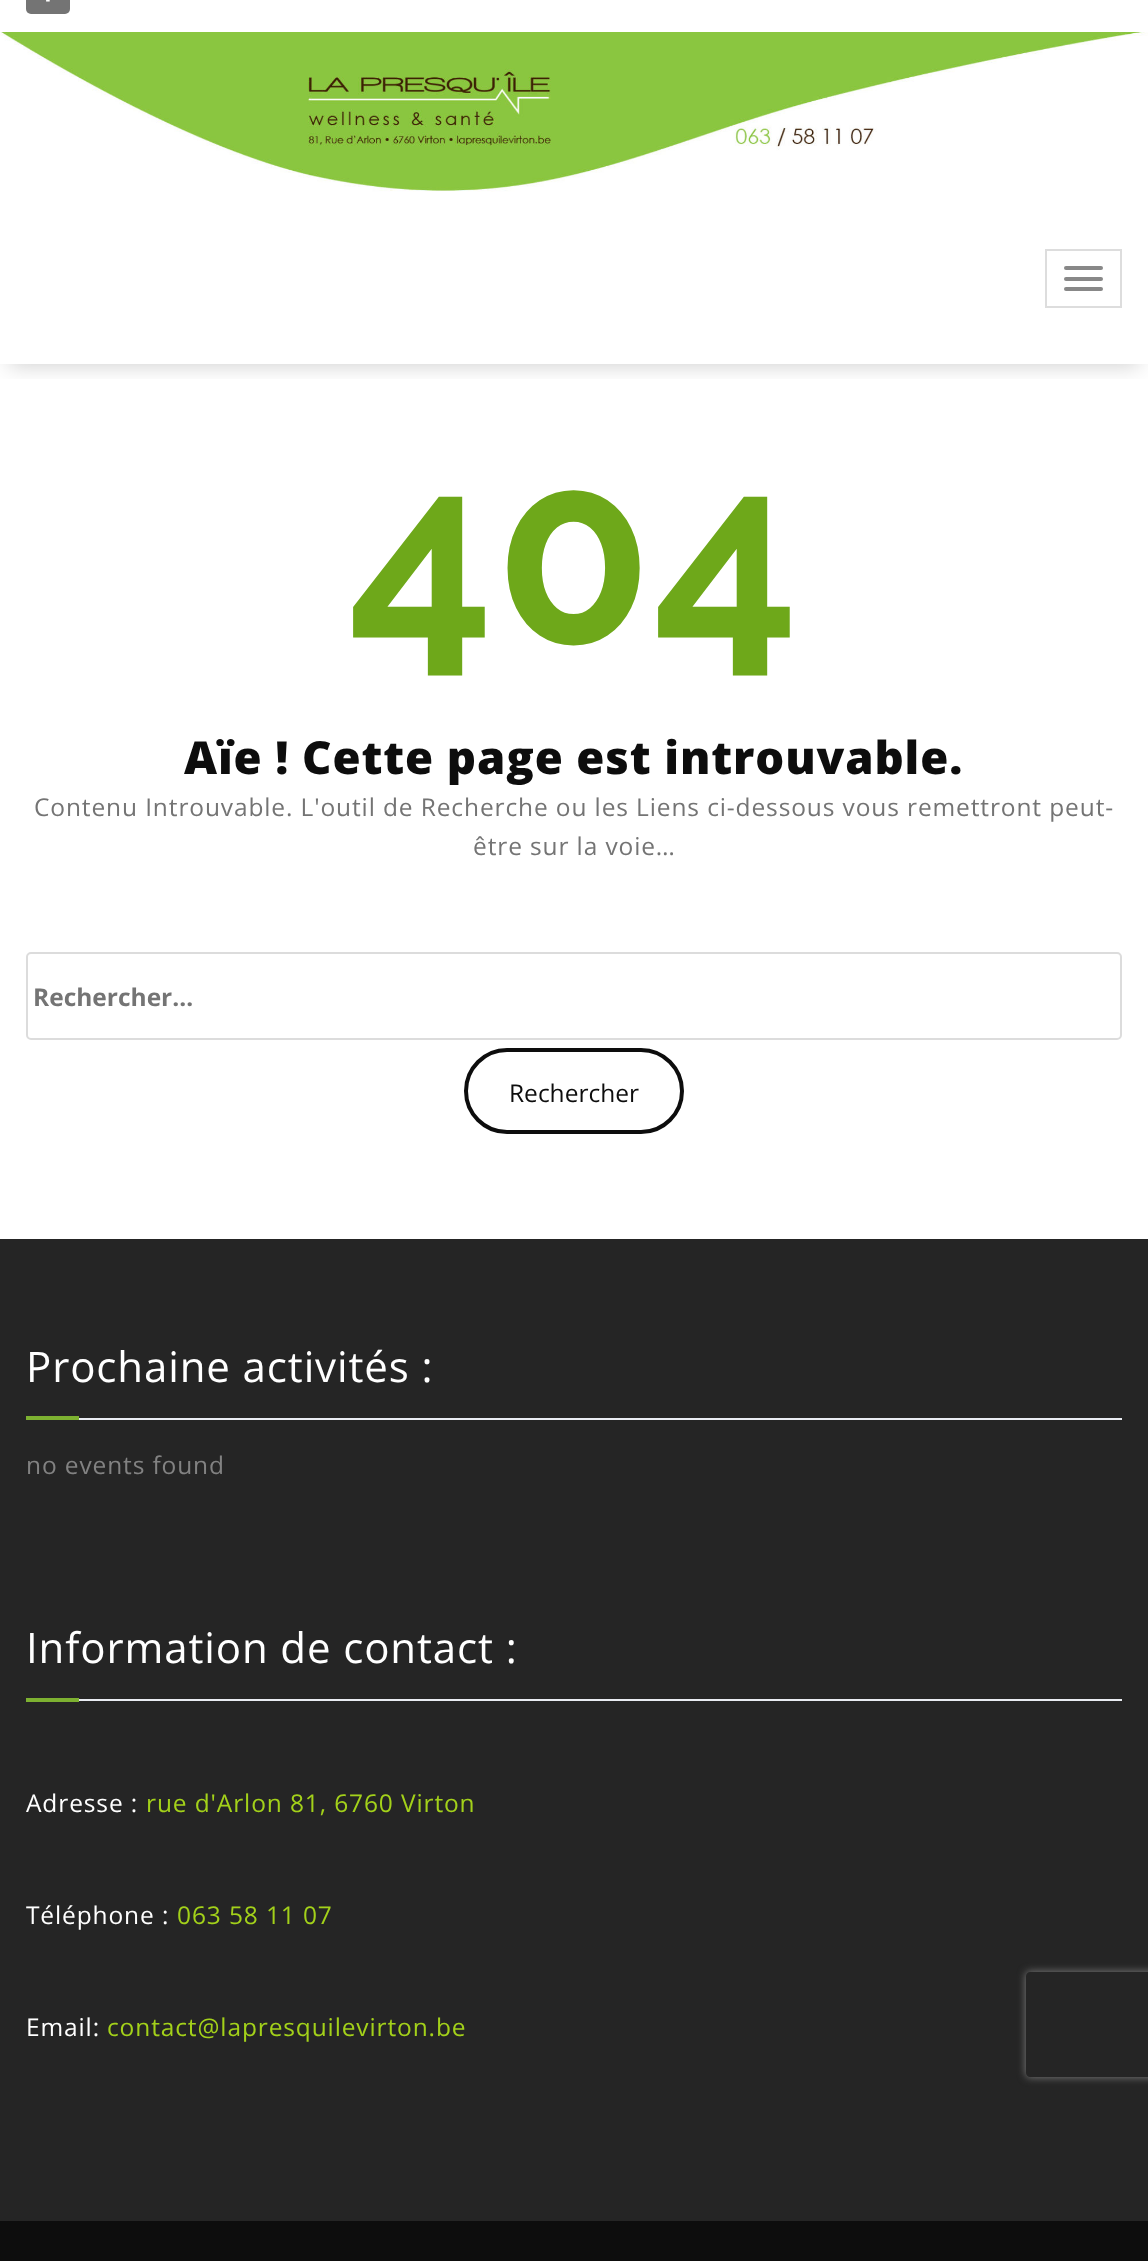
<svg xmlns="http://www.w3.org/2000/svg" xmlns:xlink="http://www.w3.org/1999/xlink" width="1148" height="2261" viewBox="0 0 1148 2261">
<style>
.cls-1{font:bold 256px Raleway;letter-spacing:0.88px;fill:#6ea81a}
.cls-2{font:800 45.5px Open Sans;letter-spacing:0.88px;fill:#0d0d0d}
.cls-3{font:24.5px Open Sans;letter-spacing:0.88px;fill:#747474}
.cls-4{font:bold 24.5px Open Sans;fill:#747474}
.cls-5{font:24.5px Open Sans;fill:#0d0d0d}
.cls-6{font:42px Open Sans;letter-spacing:0.88px;fill:#ffffff}
.cls-7{font:24.5px Open Sans;letter-spacing:0.88px;fill:#828282}
.cls-8{font:24.5px Open Sans;letter-spacing:0.88px;fill:#ffffff}
.cls-9{font:24.5px Open Sans;letter-spacing:0.88px;fill:#a3d11a}
</style>
<defs>
<clipPath id="clip1"><rect x="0" y="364" width="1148" height="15"/></clipPath>
<clipPath id="clip2"><path d="M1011 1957H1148V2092H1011ZM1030 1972H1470C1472 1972 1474 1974 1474 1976V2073C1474 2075 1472 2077 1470 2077H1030C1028 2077 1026 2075 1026 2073V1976C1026 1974 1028 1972 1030 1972Z" clip-rule="evenodd"/></clipPath>
</defs>
<rect width="100%" height="100%" fill="#ffffff"/>
<rect fill="#747474" x="26" y="-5" width="44" height="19" rx="5"/>
<image xlink:href="image0.png" x="46" y="0" width="4" height="2"/>
<image xlink:href="image1.png" x="0" y="32" width="1148" height="160"/>
<g clip-path="url(#clip1)">
<rect fill="#000000" fill-opacity="0.18" filter="blur(10.5px)" x="9" y="212" width="1130" height="154"/>
</g>
<rect fill="none" stroke="#dddddd" stroke-width="2" x="1046" y="250" width="75" height="57"/>
<rect fill="#888888" x="1064" y="266" width="39" height="4" rx="2"/>
<rect fill="#888888" x="1064" y="277" width="39" height="4" rx="2"/>
<rect fill="#888888" x="1064" y="287" width="39" height="4" rx="2"/>
<rect fill="none" stroke="#dcdcdc" stroke-width="2" x="27" y="953" width="1094" height="86" rx="4"/>
<rect fill="none" stroke="#0d0d0d" stroke-width="4" x="466" y="1050" width="216" height="82" rx="41"/>
<rect fill="#252525" x="0" y="1239" width="1148" height="982"/>
<rect fill="#e9ecf2" x="79" y="1418" width="1043" height="2"/>
<rect fill="#7db131" x="26" y="1416" width="53" height="4"/>
<rect fill="#e9ecf2" x="79" y="1699" width="1043" height="2"/>
<rect fill="#7db131" x="26" y="1698" width="53" height="4"/>
<rect fill="#0d0d0d" x="0" y="2221" width="1148" height="40"/>
<g clip-path="url(#clip2)">
<rect fill="#808080" filter="blur(4.5px)" x="1026" y="1972" width="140" height="105" rx="4"/>
</g>
<text class="cls-1" x="348" y="643">404</text>
<text class="cls-2" x="184" y="774">Aïe ! Cette page est introuvable.</text>
<text class="cls-3" x="34" y="816">Contenu Introuvable. L'outil de Recherche ou les Liens ci-dessous vous remettront peut-</text>
<text class="cls-3" x="473" y="855">être sur la voie…</text>
<text class="cls-4" x="33" y="1006">Rechercher…</text>
<text class="cls-5" x="509" y="1102">Rechercher</text>
<text class="cls-6" x="26" y="1382">Prochaine activités :</text>
<text class="cls-7" x="26" y="1474">no events found</text>
<text class="cls-6" x="26" y="1663">Information de contact :</text>
<text class="cls-8" x="26" y="1812">Adresse :</text>
<text class="cls-9" x="146" y="1812">rue d'Arlon 81, 6760 Virton</text>
<text class="cls-8" x="26" y="1924">Téléphone :</text>
<text class="cls-9" x="177" y="1924">063 58 11 07</text>
<text class="cls-8" x="26" y="2036">Email:</text>
<text class="cls-9" x="107" y="2036">contact@lapresquilevirton.be</text>
</svg>
